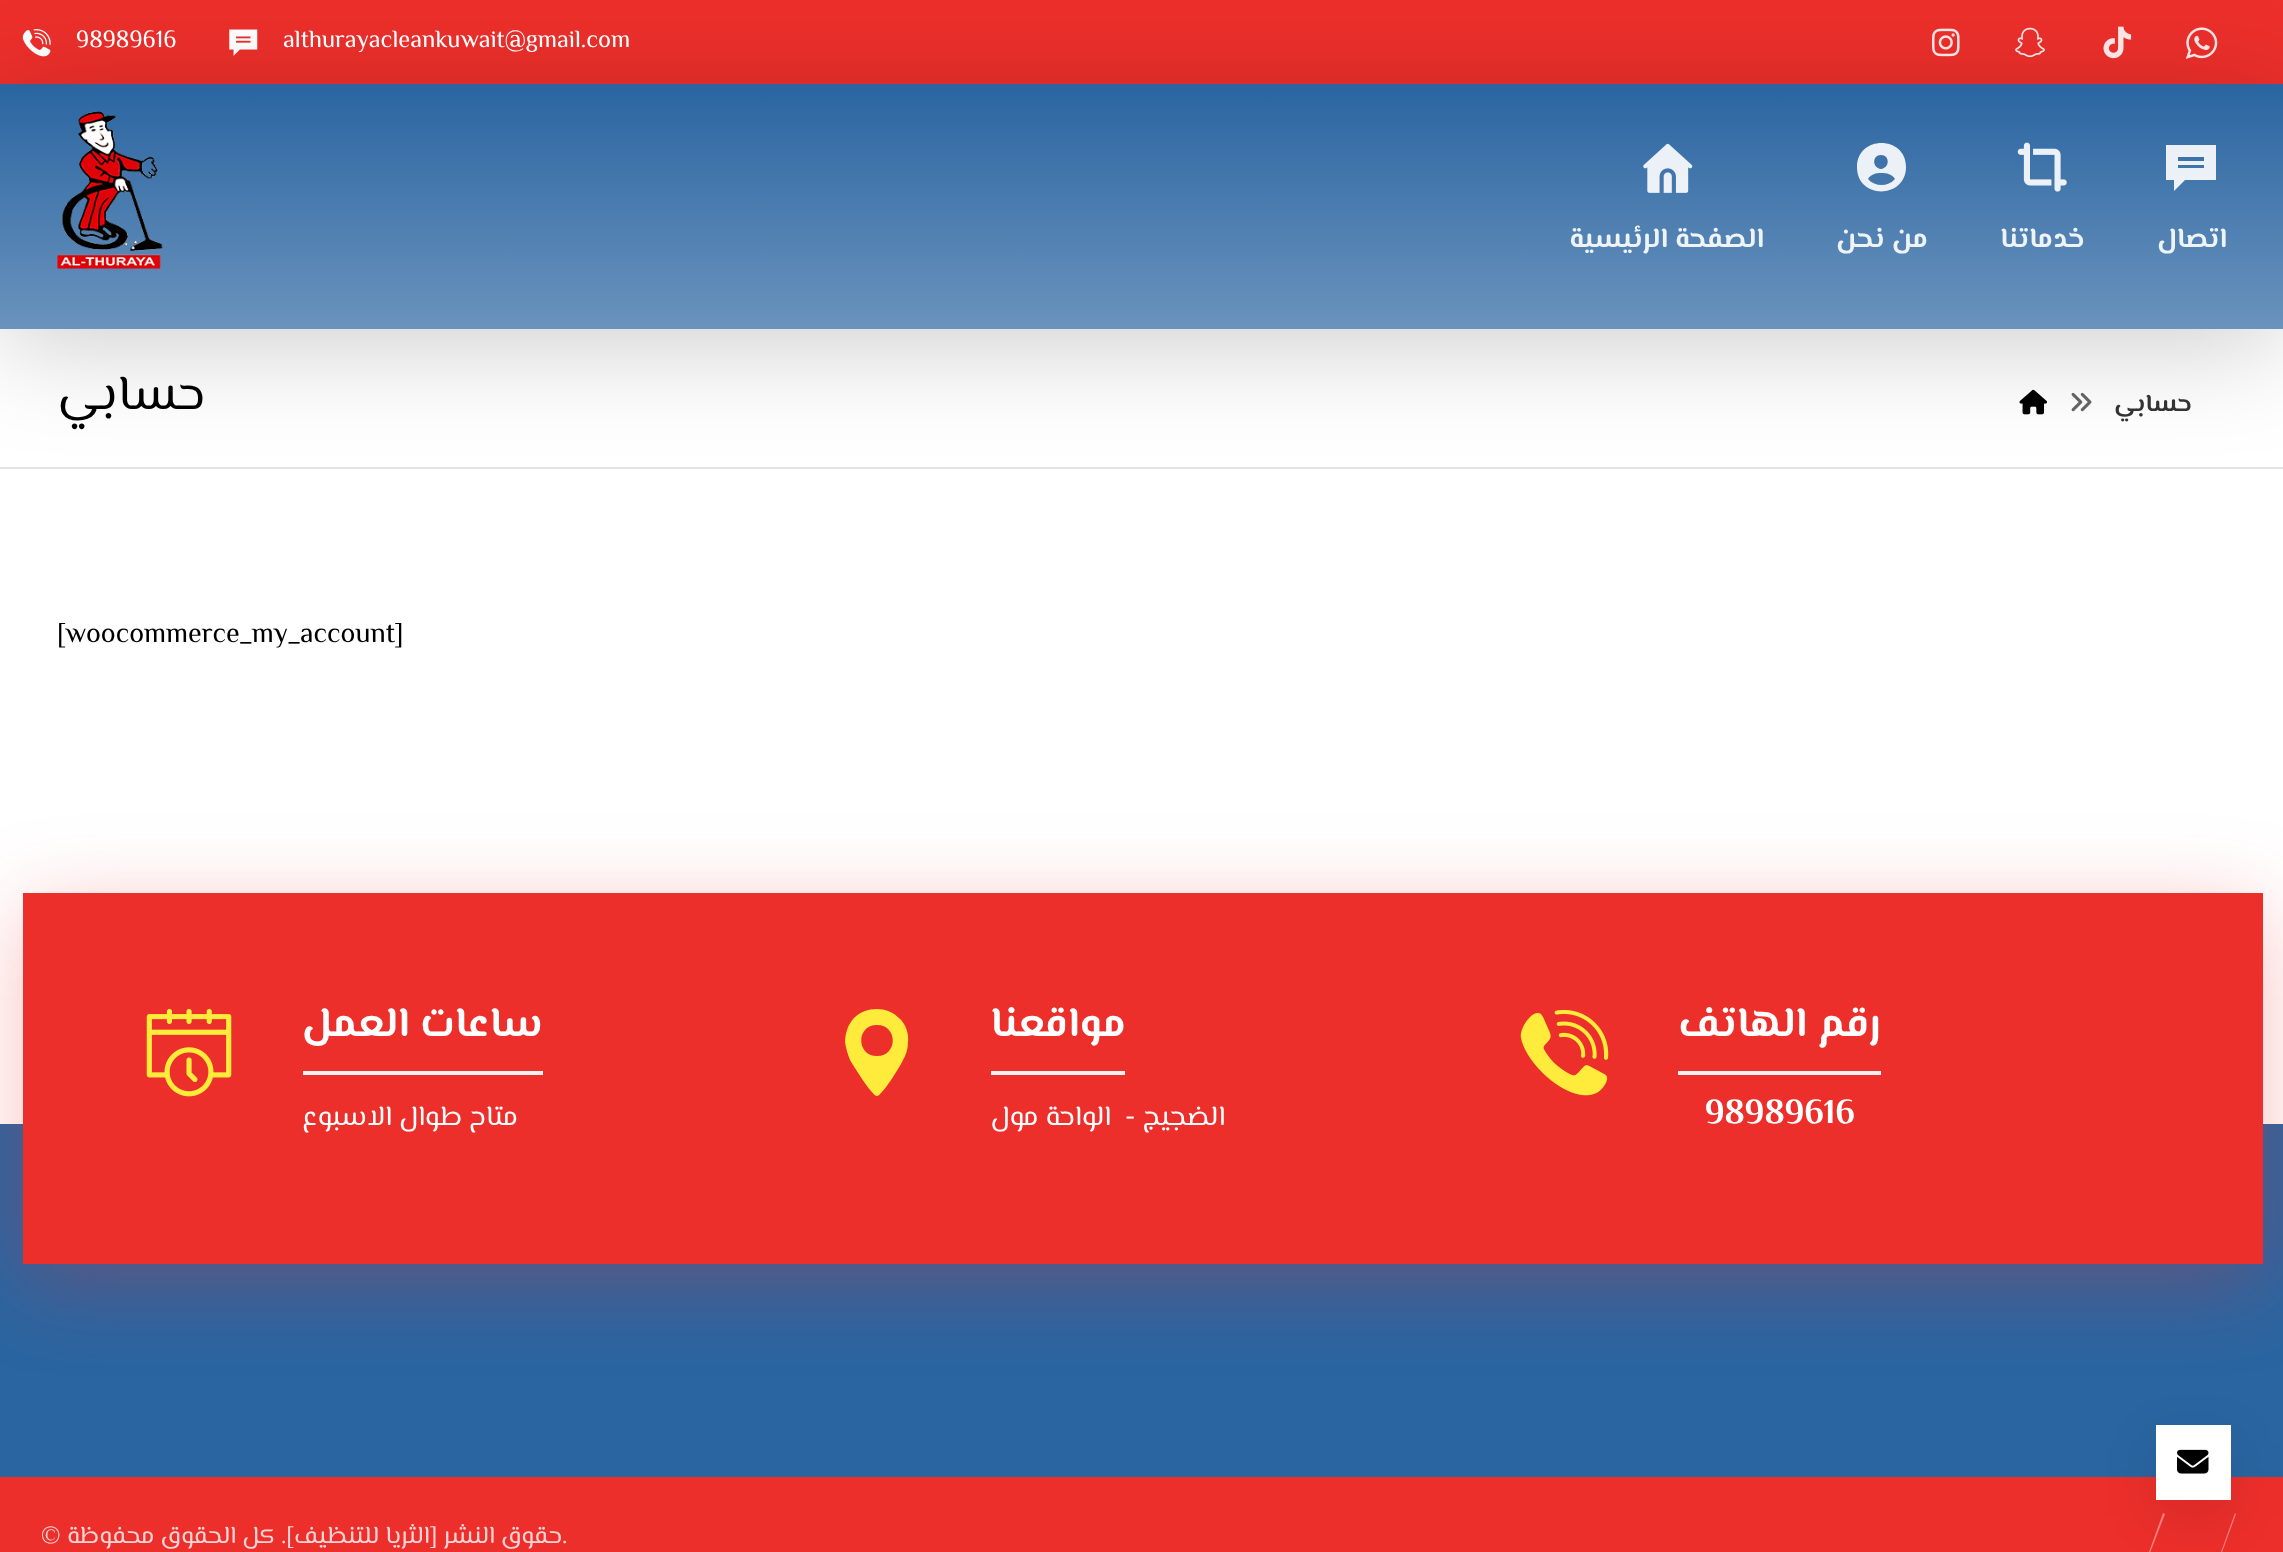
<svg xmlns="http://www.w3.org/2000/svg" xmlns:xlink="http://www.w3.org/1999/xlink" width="2283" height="1552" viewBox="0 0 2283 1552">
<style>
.cls-1{font:24.5px El Messiri;fill:#ffffff}
.cls-2{font:bold 28px El Messiri;direction:rtl;fill:#eef3f7}
.cls-3{font:bold 24.5px El Messiri;direction:rtl;fill:#333333}
.cls-4{font:49px El Messiri;direction:rtl;fill:#000000}
.cls-5{font:28px El Messiri;fill:#000000}
.cls-6{font:bold 42px El Messiri;direction:rtl;fill:#ffffff}
.cls-7{font:bold 35px El Messiri;fill:#ffffff}
.cls-8{font:28px El Messiri;direction:rtl;fill:#ffffff}
.cls-9{font:24.5px El Messiri;fill:#fbd5d5}
.cls-10{font:24.5px El Messiri;direction:rtl;fill:#fbd5d5}
</style>
<defs>
<linearGradient id="g1" gradientUnits="userSpaceOnUse" x1="1142" y1="329" x2="1142" y2="84"><stop offset="0" stop-color="#6a93bd"/><stop offset="1" stop-color="#2a65a1"/></linearGradient>
</defs>
<rect width="100%" height="100%" fill="#ffffff"/>
<rect fill="#ec2f2b" x="0" y="0" width="2283" height="84"/>
<image xlink:href="image4.png" x="229" y="29" width="29" height="27"/>
<image xlink:href="image5.png" x="22" y="29" width="29" height="28"/>
<rect fill="#e3e3e3" x="0" y="467" width="2283" height="2"/>
<image xlink:href="image9.png" x="2071" y="392" width="21" height="20"/>
<image xlink:href="image10.png" x="2019" y="389" width="28" height="26"/>
<rect fill="#000000" fill-opacity="0.19" filter="blur(52.5px)" x="0" y="102" width="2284" height="245"/>
<image xlink:href="image0.png" x="2185" y="27" width="33" height="32"/>
<image xlink:href="image1.png" x="2103" y="26" width="29" height="33"/>
<image xlink:href="image2.png" x="2015" y="27" width="30" height="31"/>
<image xlink:href="image3.png" x="1932" y="28" width="28" height="29"/>
<rect fill="url(#g1)" x="0" y="84" width="2283" height="245"/>
<path fill="#ffffff" fill-opacity="0.9" d="M2166 145V180H2174V191L2185 180H2216V145ZM2204 168H2178V165H2204ZM2204 161H2178V157H2204Z"/>
<image xlink:href="image6.png" x="2017" y="142" width="50" height="50"/>
<path fill="#ffffff" fill-opacity="0.9" d="M1895 179C1892 174 1887 173 1881 173C1876 173 1871 174 1868 179C1875 187 1888 187 1895 179ZM1857 167C1857 135 1906 135 1906 167C1906 199 1857 200 1857 167ZM1881 169C1890 168 1890 155 1881 155C1872 155 1872 168 1881 169Z"/>
<image xlink:href="image7.png" x="1643" y="143" width="50" height="50"/>
<image xlink:href="image8.png" x="57" y="111" width="106" height="158"/>
<rect fill="#2a65a1" x="0" y="1124" width="2283" height="353"/>
<rect fill="#ec2f2b" fill-opacity="0.3" filter="blur(44px)" x="23" y="910" width="2240" height="371"/>
<rect fill="#ec2f2b" x="23" y="893" width="2240" height="371"/>
<rect fill="#f1f1f1" x="1678" y="1071" width="203" height="4"/>
<image xlink:href="image11.png" x="1520" y="1009" width="89" height="87"/>
<rect fill="#f1f1f1" x="991" y="1071" width="134" height="4"/>
<path fill="#ffeb3b" d="M877 1009C868 1009 860 1012 854 1018C848 1024 845 1034 845 1042C846 1049 848 1055 850 1060C853 1065 872 1096 877 1096C882 1096 901 1065 903 1060C906 1055 908 1049 908 1042C909 1034 906 1024 899 1018C893 1012 885 1009 877 1009ZM877 1056C856 1056 856 1025 877 1025C898 1025 898 1056 877 1056Z"/>
<rect fill="#f1f1f1" x="303" y="1071" width="240" height="4"/>
<image xlink:href="image12.png" x="146" y="1008" width="86" height="89"/>
<rect fill="#ec2f2b" x="0" y="1477" width="2283" height="75"/>
<path fill="#f48280" d="M2235 1513L2236 1514L2217 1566H2216Z"/>
<path fill="#f48280" d="M2163 1513L2165 1514L2145 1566H2144Z"/>
<rect fill="#000000" fill-opacity="0.1" filter="blur(26px)" x="2156" y="1442" width="75" height="75"/>
<rect fill="#ffffff" x="2156" y="1425" width="75" height="75"/>
<image xlink:href="image13.png" x="2177" y="1449" width="32" height="25"/>
<text class="cls-1" x="283" y="47">althurayacleankuwait@gmail.com</text>
<text class="cls-1" x="76" y="47">98989616</text>
<text class="cls-2" x="2227" y="247">اتصال</text>
<text class="cls-2" x="2085" y="247">خدماتنا</text>
<text class="cls-2" x="1928" y="247">من نحن</text>
<text class="cls-2" x="1764" y="247">الصفحة الرئيسية</text>
<text class="cls-3" x="2192" y="411">حسابي</text>
<text class="cls-4" x="205" y="409">حسابي</text>
<text class="cls-5" x="57" y="642">[woocommerce_my_account]</text>
<text class="cls-6" x="1881" y="1036">رقم الهاتف</text>
<text class="cls-7" x="1705" y="1123">98989616</text>
<text class="cls-6" x="1126" y="1036">مواقعنا</text>
<text class="cls-8" xml:space="preserve" x="1225" y="1125">الضجيج -  الواحة مول</text>
<text class="cls-6" x="543" y="1036">ساعات العمل</text>
<text class="cls-8" x="518" y="1125">متاح طوال الاسبوع</text>
<text class="cls-9" x="562" y="1543">.</text>
<text class="cls-10" x="562" y="1543">حقوق النشر [الثريا للتنظيف]. كل الحقوق محفوظة</text>
<text class="cls-9" x="41" y="1543">©</text>
</svg>
